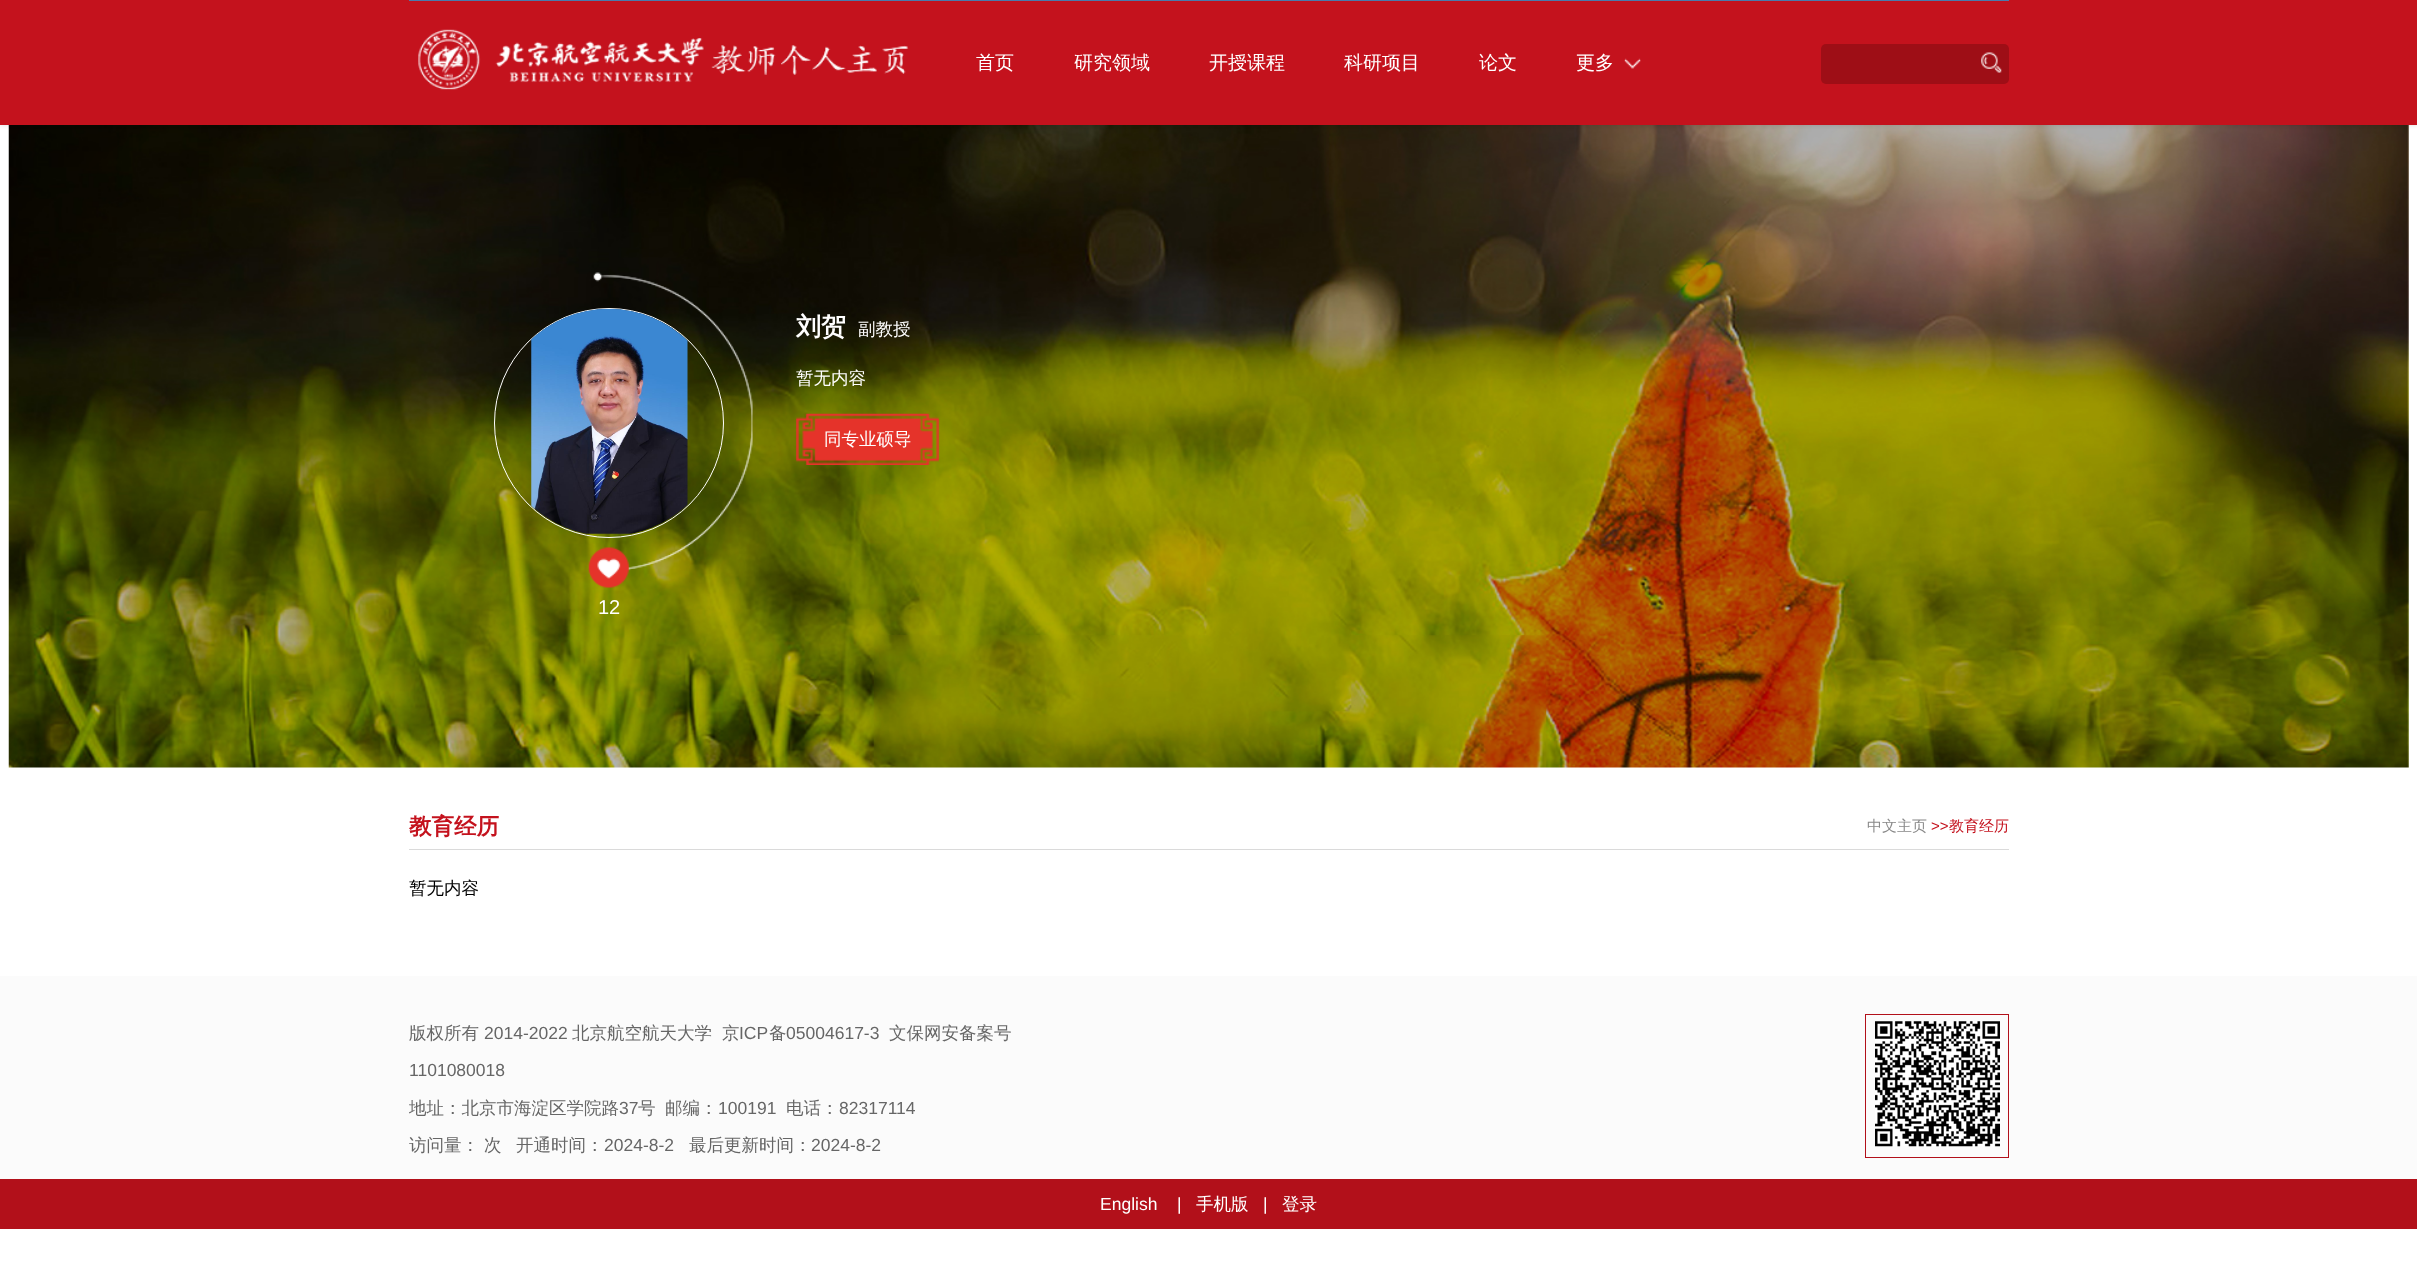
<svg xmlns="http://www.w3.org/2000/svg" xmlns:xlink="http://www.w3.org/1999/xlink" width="2417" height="1288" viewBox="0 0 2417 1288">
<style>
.cls-1{font:500 19px WenQuanYi Zen Hei;fill:#ffffff}
.cls-2{font:bold 25px WenQuanYi Zen Hei;fill:#ffffff}
.cls-3{font:500 17.5px WenQuanYi Zen Hei;fill:#ffffff}
.cls-4{font:20px Liberation Sans;fill:#ffffff}
.cls-5{font:bold 22.5px WenQuanYi Zen Hei;fill:#c4121d}
.cls-6{font:500 15px WenQuanYi Zen Hei;fill:#898989}
.cls-7{font:15px Liberation Sans;fill:#c4121d}
.cls-8{font:500 15px WenQuanYi Zen Hei;fill:#c4121d}
.cls-9{font:500 17.5px WenQuanYi Zen Hei;fill:#000000}
.cls-10{font:500 17.5px WenQuanYi Zen Hei;fill:#666666}
.cls-11{font:17.5px Liberation Sans;fill:#666666}
.cls-12{font:17.5px Liberation Sans;fill:#ffffff}
</style>
<rect width="100%" height="100%" fill="#ffffff"/>
<image xlink:href="image3.png" x="8" y="125" width="2401" height="643"/>
<rect fill="#000000" fill-opacity="0.13" filter="blur(2px)" x="0" y="0" width="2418" height="125"/>
<rect fill="#c4121d" x="0" y="0" width="2417" height="125"/>
<rect fill="#497aac" x="409" y="0" width="1600" height="1"/>
<image xlink:href="image0.png" x="418" y="29" width="491" height="61"/>
<image xlink:href="image1.png" x="1624" y="58" width="17" height="11"/>
<rect fill="#9e0e16" x="1821" y="44" width="188" height="40" rx="5"/>
<image xlink:href="image2.png" x="1981" y="52" width="21" height="21"/>
<image xlink:href="image4.png" x="796" y="413" width="143" height="52"/>
<image xlink:href="image5.png" x="588" y="272" width="165" height="316"/>
<circle fill="none" stroke="#ffffff" cx="609" cy="423" r="114.5"/>
<image xlink:href="image6.png" x="531" y="308" width="157" height="226"/>
<rect fill="#dadada" x="409" y="849" width="1600" height="1"/>
<rect fill="#fbfbfb" x="0" y="976" width="2417" height="203"/>
<rect fill="none" stroke="#b2101a" x="1865.5" y="1014.5" width="143" height="143"/>
<image xlink:href="image7.png" x="1875" y="1021" width="125" height="126"/>
<rect fill="#b2101a" x="0" y="1179" width="2417" height="50"/>
<text class="cls-1" x="976" y="69">首页</text>
<text class="cls-1" x="1074" y="69">研究领域</text>
<text class="cls-1" x="1209" y="69">开授课程</text>
<text class="cls-1" x="1344" y="69">科研项目</text>
<text class="cls-1" x="1479" y="69">论文</text>
<text class="cls-1" x="1576" y="69">更多</text>
<text class="cls-2" x="796" y="335">刘贺</text>
<text class="cls-3" x="858" y="335">副教授</text>
<text class="cls-3" x="796" y="384">暂无内容</text>
<text class="cls-3" x="824" y="445">同专业硕导</text>
<text class="cls-4" x="598" y="614">12</text>
<text class="cls-5" x="409" y="834">教育经历</text>
<text class="cls-6" x="1867" y="831">中文主页</text>
<text class="cls-7" x="1931" y="831">&gt;&gt;</text>
<text class="cls-8" x="1949" y="831">教育经历</text>
<text class="cls-9" x="409" y="894">暂无内容</text>
<text class="cls-10" x="409" y="1039">版权所有</text>
<text class="cls-11" x="484" y="1039">2014-2022</text>
<text class="cls-10" x="572" y="1039">北京航空航天大学</text>
<text class="cls-10" x="722" y="1039">京</text>
<text class="cls-11" x="739" y="1039">ICP</text>
<text class="cls-10" x="769" y="1039">备</text>
<text class="cls-11" x="786" y="1039">05004617-3</text>
<text class="cls-10" x="889" y="1039">文保网安备案号</text>
<text class="cls-11" x="409" y="1076">1101080018</text>
<text class="cls-10" x="409" y="1114">地址：北京市海淀区学院路</text>
<text class="cls-11" x="619" y="1114">37</text>
<text class="cls-10" x="638" y="1114">号</text>
<text class="cls-10" x="665" y="1114">邮编：</text>
<text class="cls-11" x="718" y="1114">100191</text>
<text class="cls-10" x="786" y="1114">电话：</text>
<text class="cls-11" x="839" y="1114">82317114</text>
<text class="cls-10" x="409" y="1151">访问量：</text>
<text class="cls-10" x="484" y="1151">次</text>
<text class="cls-10" x="516" y="1151">开通时间：</text>
<text class="cls-11" x="604" y="1151">2024-8-2</text>
<text class="cls-10" x="689" y="1151">最后更新时间：</text>
<text class="cls-11" x="811" y="1151">2024-8-2</text>
<text class="cls-12" x="1100" y="1210">English</text>
<text class="cls-12" x="1177" y="1210">|</text>
<text class="cls-3" x="1196" y="1210">手机版</text>
<text class="cls-12" x="1263" y="1210">|</text>
<text class="cls-3" x="1282" y="1210">登录</text>
</svg>
